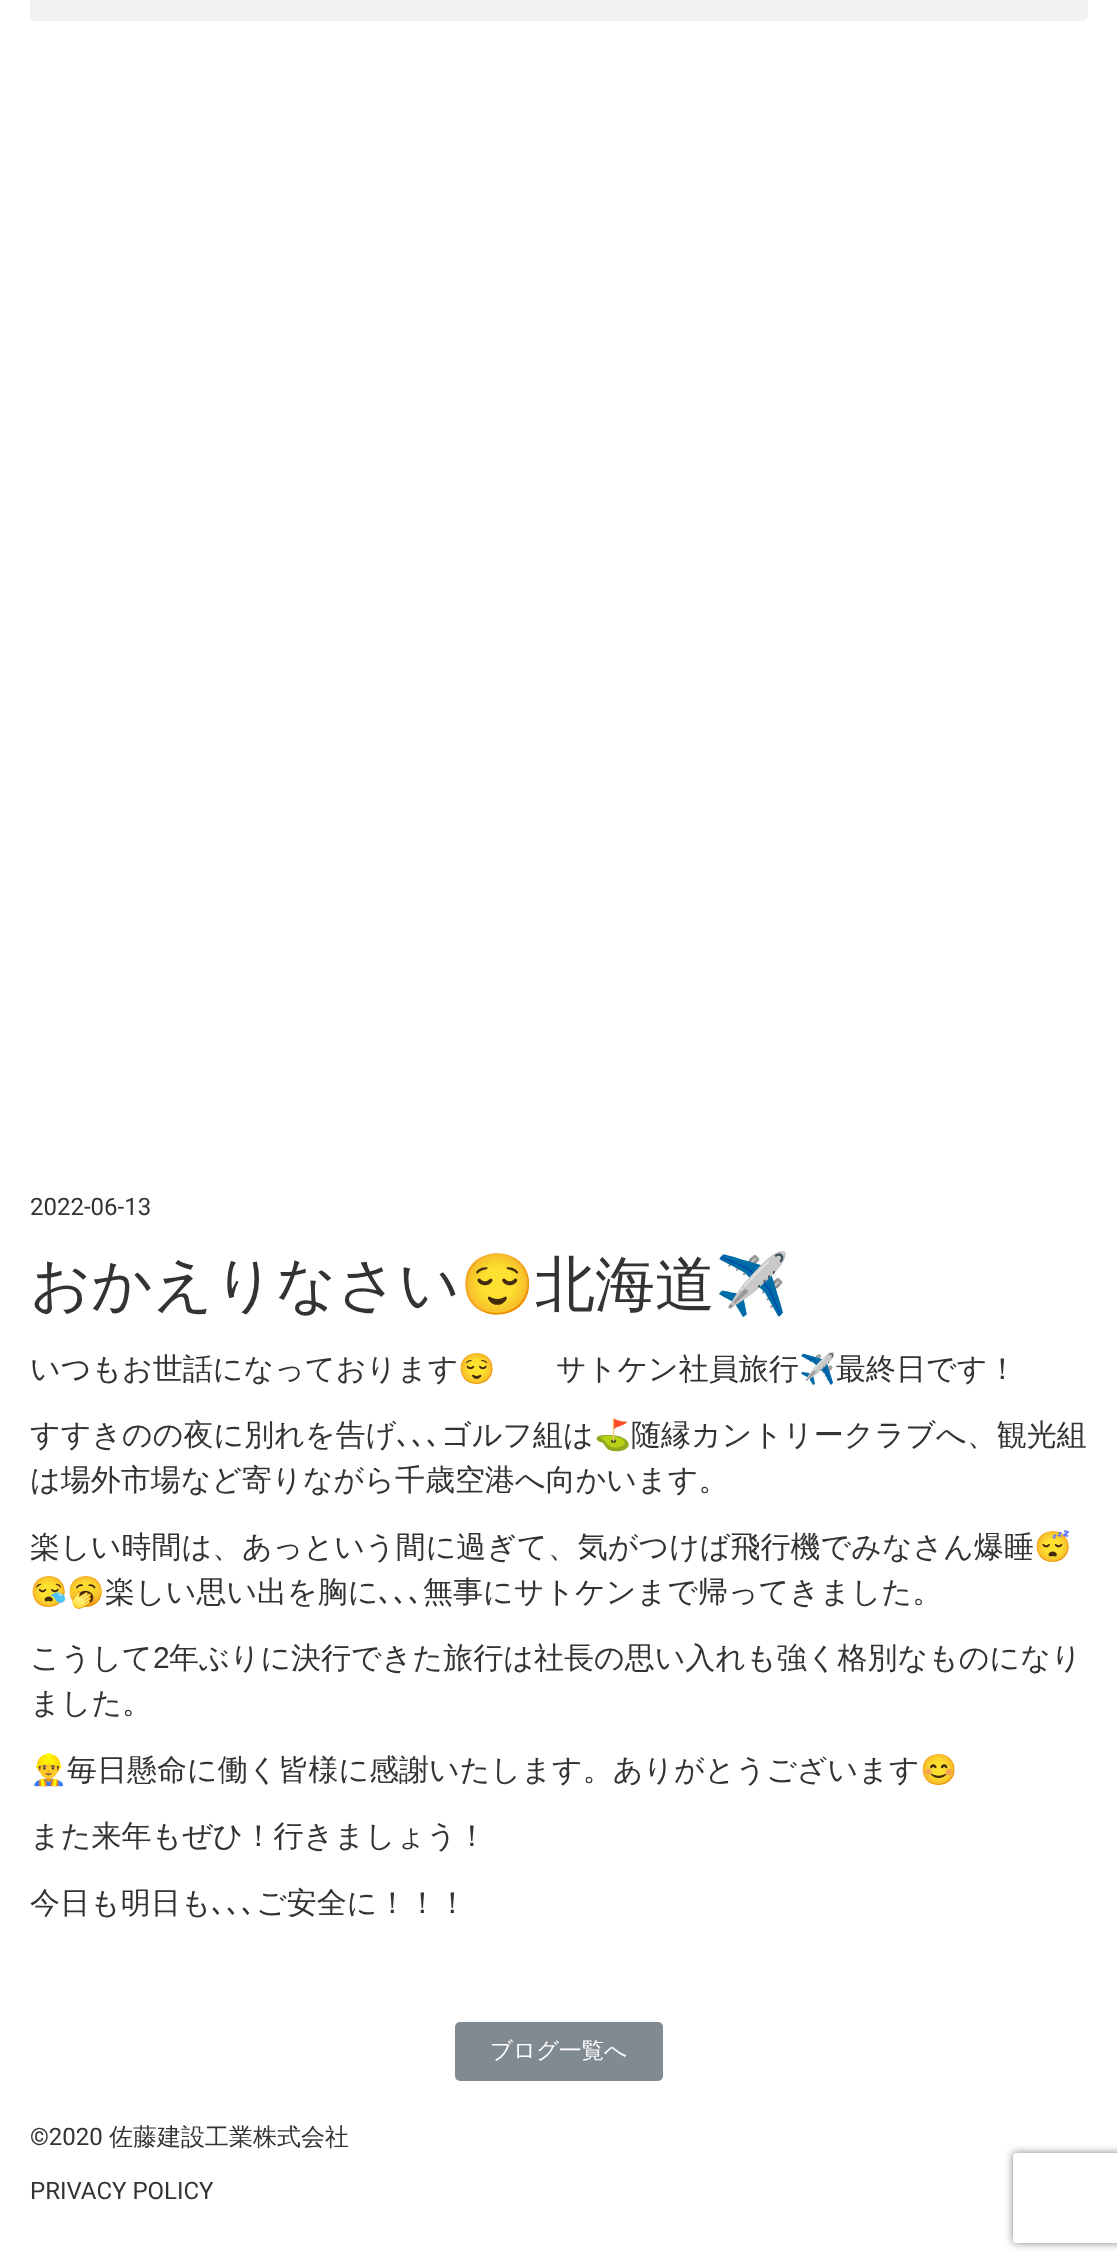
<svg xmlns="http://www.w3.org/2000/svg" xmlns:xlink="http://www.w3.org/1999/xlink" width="1117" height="2263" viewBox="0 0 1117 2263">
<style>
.cls-1{font:24px Roboto;fill:#333333}
.cls-2{font:500 60px WenQuanYi Zen Hei;fill:#333333}
.cls-3{font:60px Noto Color Emoji;fill:#333333}
.cls-4{font:500 30px WenQuanYi Zen Hei;fill:#333333}
.cls-5{font:30px Noto Color Emoji;fill:#333333}
.cls-6{font:30px IPAPGothic;fill:#333333}
.cls-7{font:30px Liberation Sans;fill:#333333}
.cls-8{font:500 22.5px WenQuanYi Zen Hei;fill:#ffffff}
.cls-9{font:500 24px WenQuanYi Zen Hei;fill:#333333}
</style>
<defs>
<clipPath id="clip1"><path d="M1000 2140H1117V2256H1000ZM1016 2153H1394C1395.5 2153 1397 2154.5 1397 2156V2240C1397 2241.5 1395.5 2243 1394 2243H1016C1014.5 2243 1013 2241.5 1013 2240V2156C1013 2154.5 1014.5 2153 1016 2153Z" clip-rule="evenodd"/></clipPath>
</defs>
<rect width="100%" height="100%" fill="#ffffff"/>
<rect fill="#f2f2f2" x="30" y="-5" width="1058" height="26" rx="5"/>
<rect fill="#818a91" x="455" y="2022" width="208" height="59" rx="5"/>
<g clip-path="url(#clip1)">
<rect fill="#808080" filter="blur(4px)" x="1013" y="2153" width="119" height="90" rx="3"/>
</g>
<text class="cls-1" x="30" y="1215">2022-06-13</text>
<text class="cls-2" x="30" y="1305">おかえりなさい</text>
<text class="cls-3" x="460" y="1305">😌</text>
<text class="cls-2" x="535" y="1305">北海道</text>
<text class="cls-3" x="715" y="1305">✈️</text>
<text class="cls-4" x="30" y="1379">いつもお世話になっております</text>
<text class="cls-5" x="458" y="1379">😌</text>
<text class="cls-4" x="556" y="1379">サトケン社員旅行</text>
<text class="cls-5" x="799" y="1379">✈️</text>
<text class="cls-4" x="836" y="1379">最終日です！</text>
<text class="cls-4" x="30" y="1445">すすきのの夜に別れを告げ</text>
<text class="cls-6" x="396" y="1445">､､､</text>
<text class="cls-4" x="441" y="1445">ゴルフ組は</text>
<text class="cls-5" x="594" y="1445">⛳️</text>
<text class="cls-4" x="631" y="1445">随縁カントリークラブへ、観光組</text>
<text class="cls-4" x="30" y="1490">は場外市場など寄りながら千歳空港へ向かいます。</text>
<text class="cls-4" x="30" y="1557">楽しい時間は、あっという間に過ぎて、気がつけば飛行機でみなさん爆睡</text>
<text class="cls-5" x="1034" y="1557">😴</text>
<text class="cls-5" x="30" y="1602">😪🥱</text>
<text class="cls-4" x="105" y="1602">楽しい思い出を胸に</text>
<text class="cls-6" x="378" y="1602">､､､</text>
<text class="cls-4" x="423" y="1602">無事にサトケンまで帰ってきました。</text>
<text class="cls-4" x="30" y="1668">こうして</text>
<text class="cls-7" x="153" y="1668">2</text>
<text class="cls-4" x="169" y="1668">年ぶりに決行できた旅行は社長の思い入れも強く格別なものになり</text>
<text class="cls-4" x="30" y="1713">ました。</text>
<text class="cls-5" x="30" y="1780">👷‍♂️</text>
<text class="cls-4" x="67" y="1780">毎日懸命に働く皆様に感謝いたします。ありがとうございます</text>
<text class="cls-5" x="920" y="1780">😊</text>
<text class="cls-4" x="30" y="1846">また来年もぜひ！行きましょう！</text>
<text class="cls-4" x="30" y="1913">今日も明日も</text>
<text class="cls-6" x="211" y="1913">､､､</text>
<text class="cls-4" x="256" y="1913">ご安全に！！！</text>
<text class="cls-8" x="490" y="2058">ブログ一覧へ</text>
<text class="cls-1" x="30" y="2145">©2020</text>
<text class="cls-9" x="109" y="2145">佐藤建設工業株式会社</text>
<text class="cls-1" x="30" y="2199">PRIVACY POLICY</text>
</svg>
